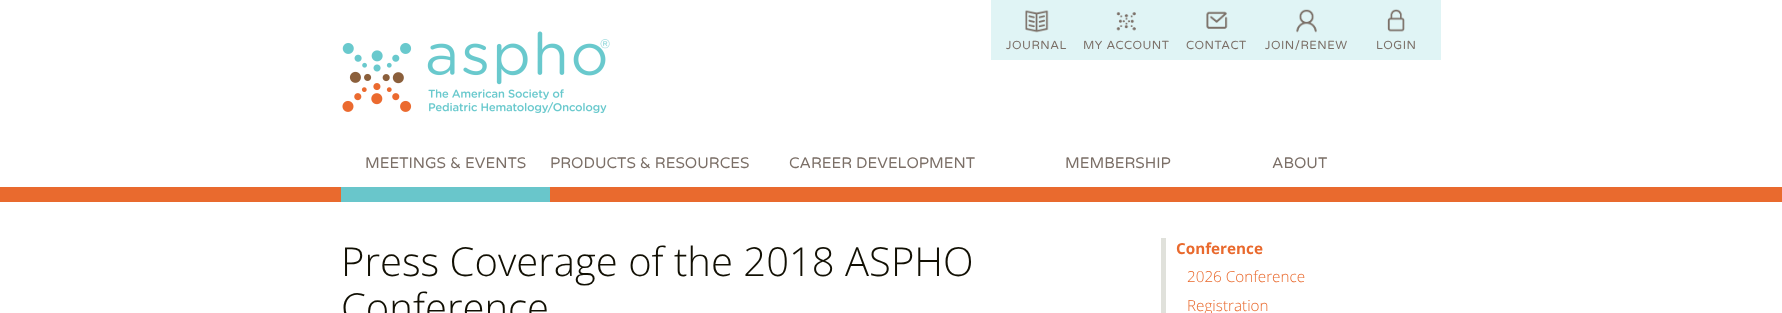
<svg xmlns="http://www.w3.org/2000/svg" xmlns:xlink="http://www.w3.org/1999/xlink" width="1782" height="313" viewBox="0 0 1782 313">
<style>
.cls-1{font:11.75px Varela Round;letter-spacing:0.5px;fill:#7b6f67}
.cls-2{font:15.25px Varela Round;fill:#7b6f67}
.cls-3{font:300 40px Open Sans;fill:#110f03}
.cls-4{font:bold 15.25px Open Sans;fill:#e96a2e}
.cls-5{font:300 15.25px Open Sans;fill:#e96a2e}
</style>
<rect width="100%" height="100%" fill="#ffffff"/>
<rect fill="#e96a2e" x="0" y="187" width="1782" height="15"/>
<image xlink:href="image0.png" x="342" y="31" width="268" height="82"/>
<rect fill="#e0f4f5" x="991" y="0" width="450" height="60"/>
<image xlink:href="image1.png" x="1025" y="10" width="24" height="23"/>
<image xlink:href="image2.png" x="1116" y="12" width="20" height="19"/>
<image xlink:href="image3.png" x="1206" y="11" width="22" height="18"/>
<image xlink:href="image4.png" x="1296" y="9" width="21" height="24"/>
<image xlink:href="image5.png" x="1387" y="9" width="18" height="23"/>
<rect fill="#69c6cb" x="341" y="187" width="209" height="15"/>
<rect fill="#e0e1db" x="1161" y="238" width="5" height="75"/>
<text class="cls-1" x="1006" y="49">JOURNAL</text>
<text class="cls-1" x="1083" y="49">MY ACCOUNT</text>
<text class="cls-1" x="1186" y="49">CONTACT</text>
<text class="cls-1" x="1265" y="49">JOIN/RENEW</text>
<text class="cls-1" x="1376" y="49">LOGIN</text>
<text class="cls-2" x="365" y="168">MEETINGS &amp; EVENTS</text>
<text class="cls-2" x="550" y="168">PRODUCTS &amp; RESOURCES</text>
<text class="cls-2" x="789" y="168">CAREER DEVELOPMENT</text>
<text class="cls-2" x="1065" y="168">MEMBERSHIP</text>
<text class="cls-2" x="1272" y="168">ABOUT</text>
<text class="cls-3"><tspan x="341" y="276">Press Coverage of the 2018 ASPHO</tspan><tspan x="341" y="322">Conference</tspan></text>
<text class="cls-4" x="1176" y="254">Conference</text>
<text class="cls-5"><tspan x="1187" y="282">2026 Conference</tspan><tspan x="1187" y="311">Registration</tspan></text>
</svg>
